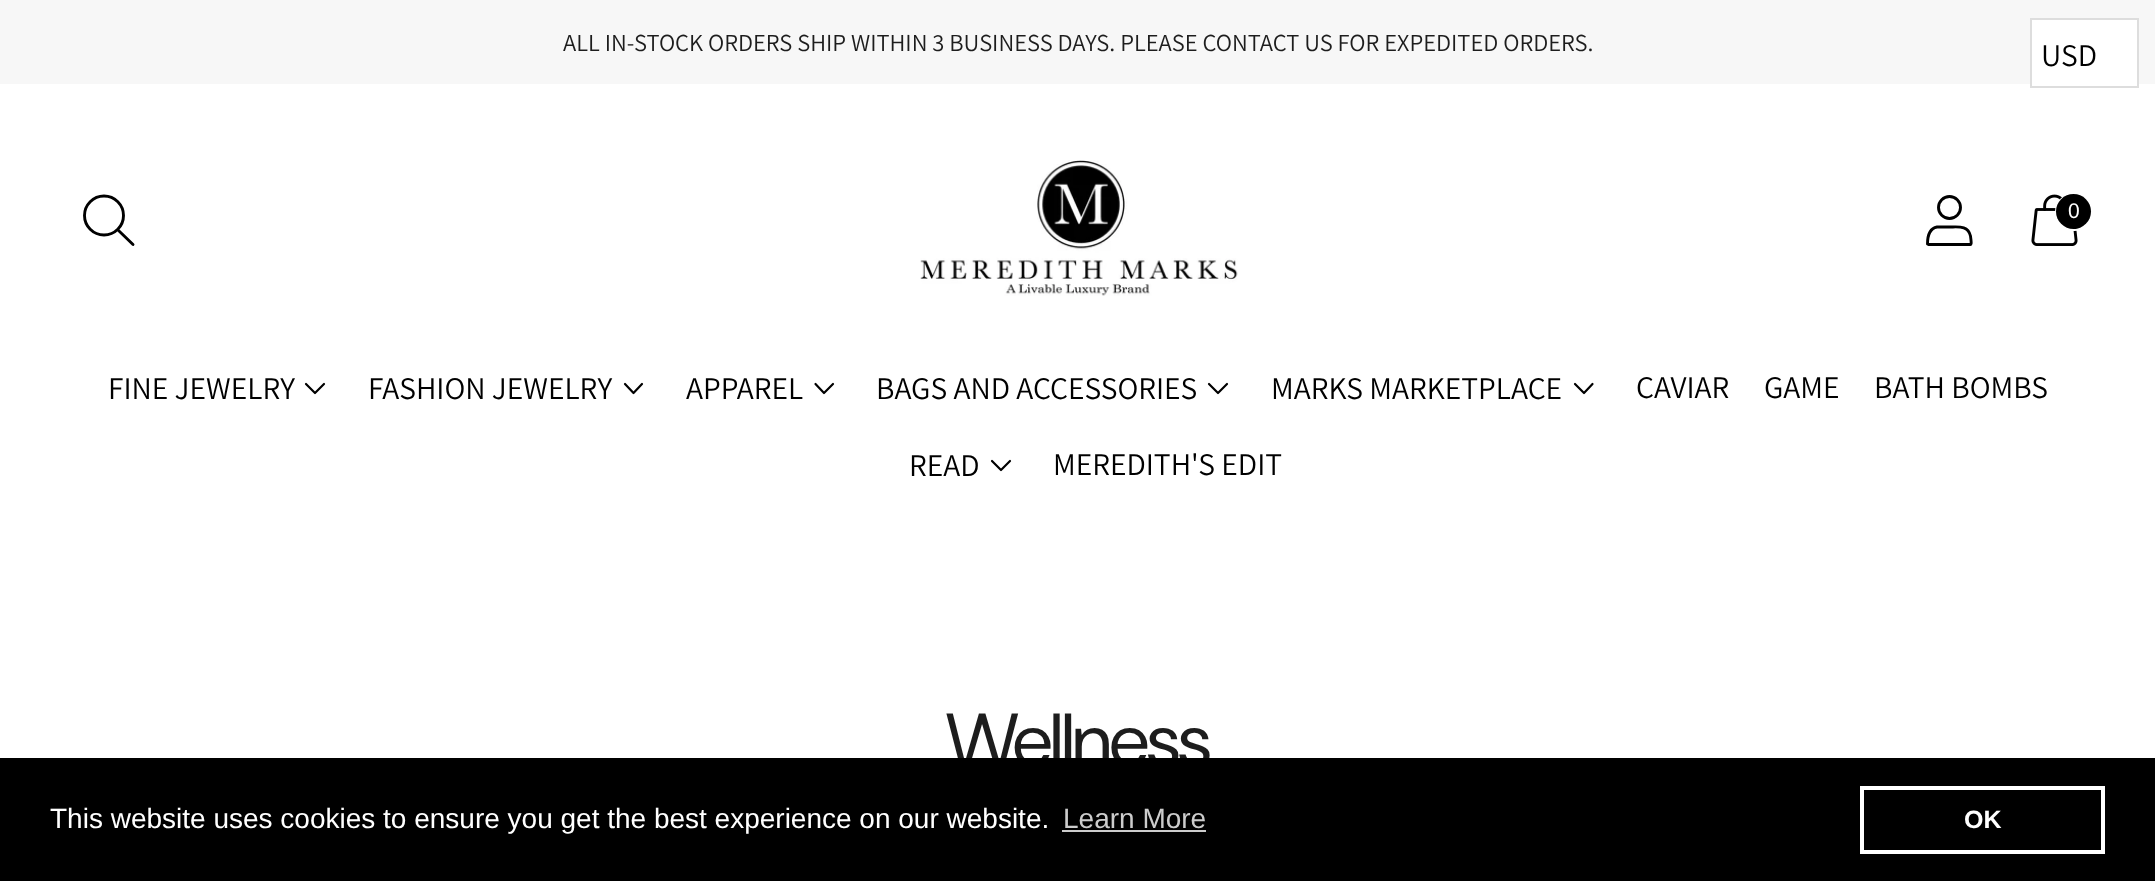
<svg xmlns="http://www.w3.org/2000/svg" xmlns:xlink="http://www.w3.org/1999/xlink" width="2155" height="881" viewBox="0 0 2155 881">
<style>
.cls-1{font:24.5px Assistant;fill:#1d1d1d}
.cls-2{font:21px Liberation Sans;fill:#ffffff}
.cls-3{font:31.5px Assistant;fill:#000000}
.cls-4{font:75px DM Sans;letter-spacing:-2px;fill:#1d1d1d}
.cls-5{font:28px Liberation Sans;fill:#ffffff}
.cls-6{font:28px Liberation Sans;fill:#cccccc}
.cls-7{font:bold 25px Liberation Sans;fill:#ffffff}
</style>
<rect width="100%" height="100%" fill="#ffffff"/>
<rect fill="#f7f7f7" x="0" y="0" width="2155" height="84"/>
<circle fill="none" stroke="#000000" stroke-width="2.9" cx="104" cy="215.5" r="19.5"/>
<path fill="none" stroke="#000000" stroke-width="2.9" stroke-linecap="round" stroke-linejoin="round" d="M118.5 230.5L133 244.5"/>
<image xlink:href="image0.png" x="920" y="160" width="318" height="136"/>
<circle fill="none" stroke="#000000" stroke-width="2.9" cx="1949.5" cy="207.5" r="11"/>
<path fill="none" stroke="#000000" stroke-width="2.9" stroke-linecap="round" stroke-linejoin="round" d="M1970.5 244.5C1972 244.5 1970.5 237 1970.5 236C1968 225 1958 227 1949.5 227H1937C1929.5 228.5 1927.5 237 1927.5 244L1928.5 244.5Z"/>
<image xlink:href="image1.png" x="2031" y="194" width="47" height="52"/>
<circle fill="none" stroke="#ffffff" stroke-width="2" cx="2074" cy="212" r="18"/>
<circle fill="#000000" cx="2073.5" cy="211.5" r="17.5"/>
<path fill="none" stroke="#000000" stroke-width="2.2" stroke-linecap="round" stroke-linejoin="round" d="M306 384L315 393L324 384"/>
<path fill="none" stroke="#000000" stroke-width="2.2" stroke-linecap="round" stroke-linejoin="round" d="M625 384L633.5 393L642 384"/>
<path fill="none" stroke="#000000" stroke-width="2.2" stroke-linecap="round" stroke-linejoin="round" d="M815.5 384L824 393L833 384"/>
<path fill="none" stroke="#000000" stroke-width="2.2" stroke-linecap="round" stroke-linejoin="round" d="M1209 384L1218 393L1227 384"/>
<path fill="none" stroke="#000000" stroke-width="2.2" stroke-linecap="round" stroke-linejoin="round" d="M1575 384L1584 393L1592.5 384"/>
<path fill="none" stroke="#000000" stroke-width="2.2" stroke-linecap="round" stroke-linejoin="round" d="M992 461L1001 470L1010 461"/>
<rect fill="#ffffff" x="2032" y="20" width="105" height="64"/>
<rect fill="none" stroke="#dddddd" stroke-width="2" x="2031" y="19" width="107" height="68"/>
<text class="cls-1" x="563" y="51">ALL IN-STOCK ORDERS SHIP WITHIN 3 BUSINESS DAYS. PLEASE CONTACT US FOR EXPEDITED ORDERS.</text>
<text class="cls-2" x="2068" y="218">0</text>
<text class="cls-3" x="108" y="399">FINE JEWELRY</text>
<text class="cls-3" x="368" y="399">FASHION JEWELRY</text>
<text class="cls-3" x="686" y="399">APPAREL</text>
<text class="cls-3" x="876" y="399">BAGS AND ACCESSORIES</text>
<text class="cls-3" x="1271" y="399">MARKS MARKETPLACE</text>
<text class="cls-3" x="1636" y="398">CAVIAR</text>
<text class="cls-3" x="1764" y="398">GAME</text>
<text class="cls-3" x="1874" y="398">BATH BOMBS</text>
<text class="cls-3" x="909" y="476">READ</text>
<text class="cls-3" x="1053" y="475">MEREDITH'S EDIT</text>
<text class="cls-4" x="946" y="766">Wellness</text>
<text class="cls-3" x="2041" y="66">USD</text>
<rect fill="#000000" x="0" y="758" width="2155" height="123"/>
<text class="cls-5" x="50" y="828">This website uses cookies to ensure you get the best experience on our website.</text>
<text class="cls-6" x="1063" y="828">Learn More</text>
<rect fill="#cccccc" x="1062" y="830" width="144" height="2"/>
<rect fill="none" stroke="#ffffff" stroke-width="4" x="1862" y="788" width="241" height="64"/>
<text class="cls-7" x="1964" y="828">OK</text>
</svg>
